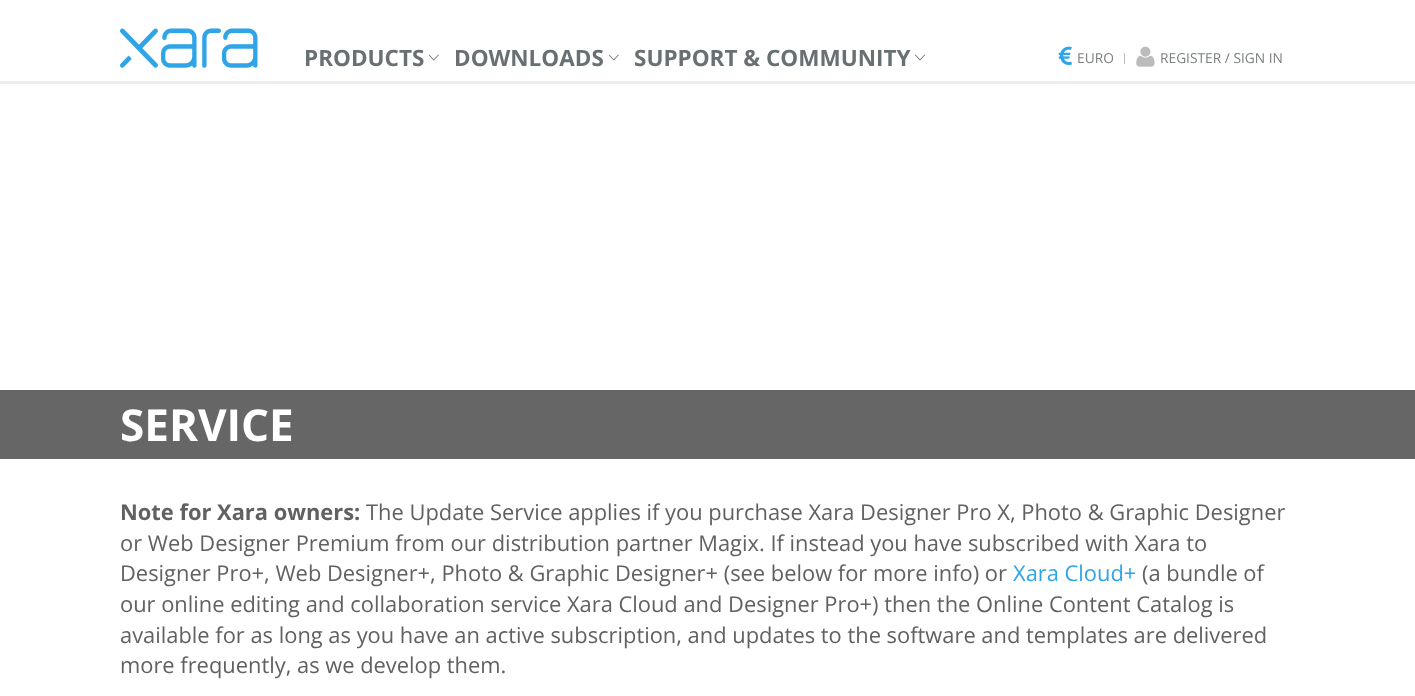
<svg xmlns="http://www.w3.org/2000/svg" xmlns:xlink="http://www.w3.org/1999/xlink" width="1415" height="696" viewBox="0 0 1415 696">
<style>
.cls-1{font:bold 22.5px Open Sans;fill:#687074}
.cls-2{font:13.75px Open Sans;fill:#7c8082}
.cls-3{font:bold 44px Open Sans;fill:#ffffff}
.cls-4{font:bold 21.88px Open Sans;fill:#616161}
.cls-5{font:21.88px Open Sans;fill:#616161}
.cls-6{font:21.88px Open Sans;fill:#2fa4e7}
</style>
<rect width="100%" height="100%" fill="#ffffff"/>
<rect fill="#eeeeee" x="0" y="81" width="1415" height="3"/>
<image xlink:href="image0.png" x="120" y="28" width="138" height="40"/>
<image xlink:href="image1.png" x="429" y="54" width="10" height="7"/>
<image xlink:href="image1.png" x="609" y="54" width="10" height="7"/>
<image xlink:href="image2.png" x="915" y="54" width="10" height="7"/>
<image xlink:href="image3.png" x="1058" y="46" width="14" height="19"/>
<rect fill="#bbbbbb" x="1124" y="53" width="1" height="11"/>
<image xlink:href="image4.png" x="1136" y="46" width="19" height="21"/>
<rect fill="#666666" x="0" y="390" width="1415" height="69"/>
<text class="cls-1" x="304" y="66">PRODUCTS</text>
<text class="cls-1" x="454" y="66">DOWNLOADS</text>
<text class="cls-1" x="634" y="66">SUPPORT &amp; COMMUNITY</text>
<text class="cls-2" x="1077" y="63">EURO</text>
<text class="cls-2" x="1160" y="63">REGISTER / SIGN IN</text>
<text class="cls-3" x="120" y="441">SERVICE</text>
<text class="cls-4" x="120" y="520">Note for Xara owners:</text>
<text class="cls-5" x="366" y="520">The Update Service applies if you purchase Xara Designer Pro X, Photo &amp; Graphic Designer</text>
<text class="cls-5"><tspan x="120" y="551">or Web Designer Premium from our distribution partner Magix. If instead you have subscribed with Xara to</tspan><tspan x="120" y="581">Designer Pro+, Web Designer+, Photo &amp; Graphic Designer+ (see below for more info) or</tspan></text>
<text class="cls-6" x="1013" y="581">Xara Cloud+</text>
<text class="cls-5" x="1142" y="581">(a bundle of</text>
<text class="cls-5"><tspan x="120" y="612">our online editing and collaboration service Xara Cloud and Designer Pro+) then the Online Content Catalog is</tspan><tspan x="120" y="643">available for as long as you have an active subscription, and updates to the software and templates are delivered</tspan><tspan x="120" y="673">more frequently, as we develop them.</tspan></text>
</svg>
